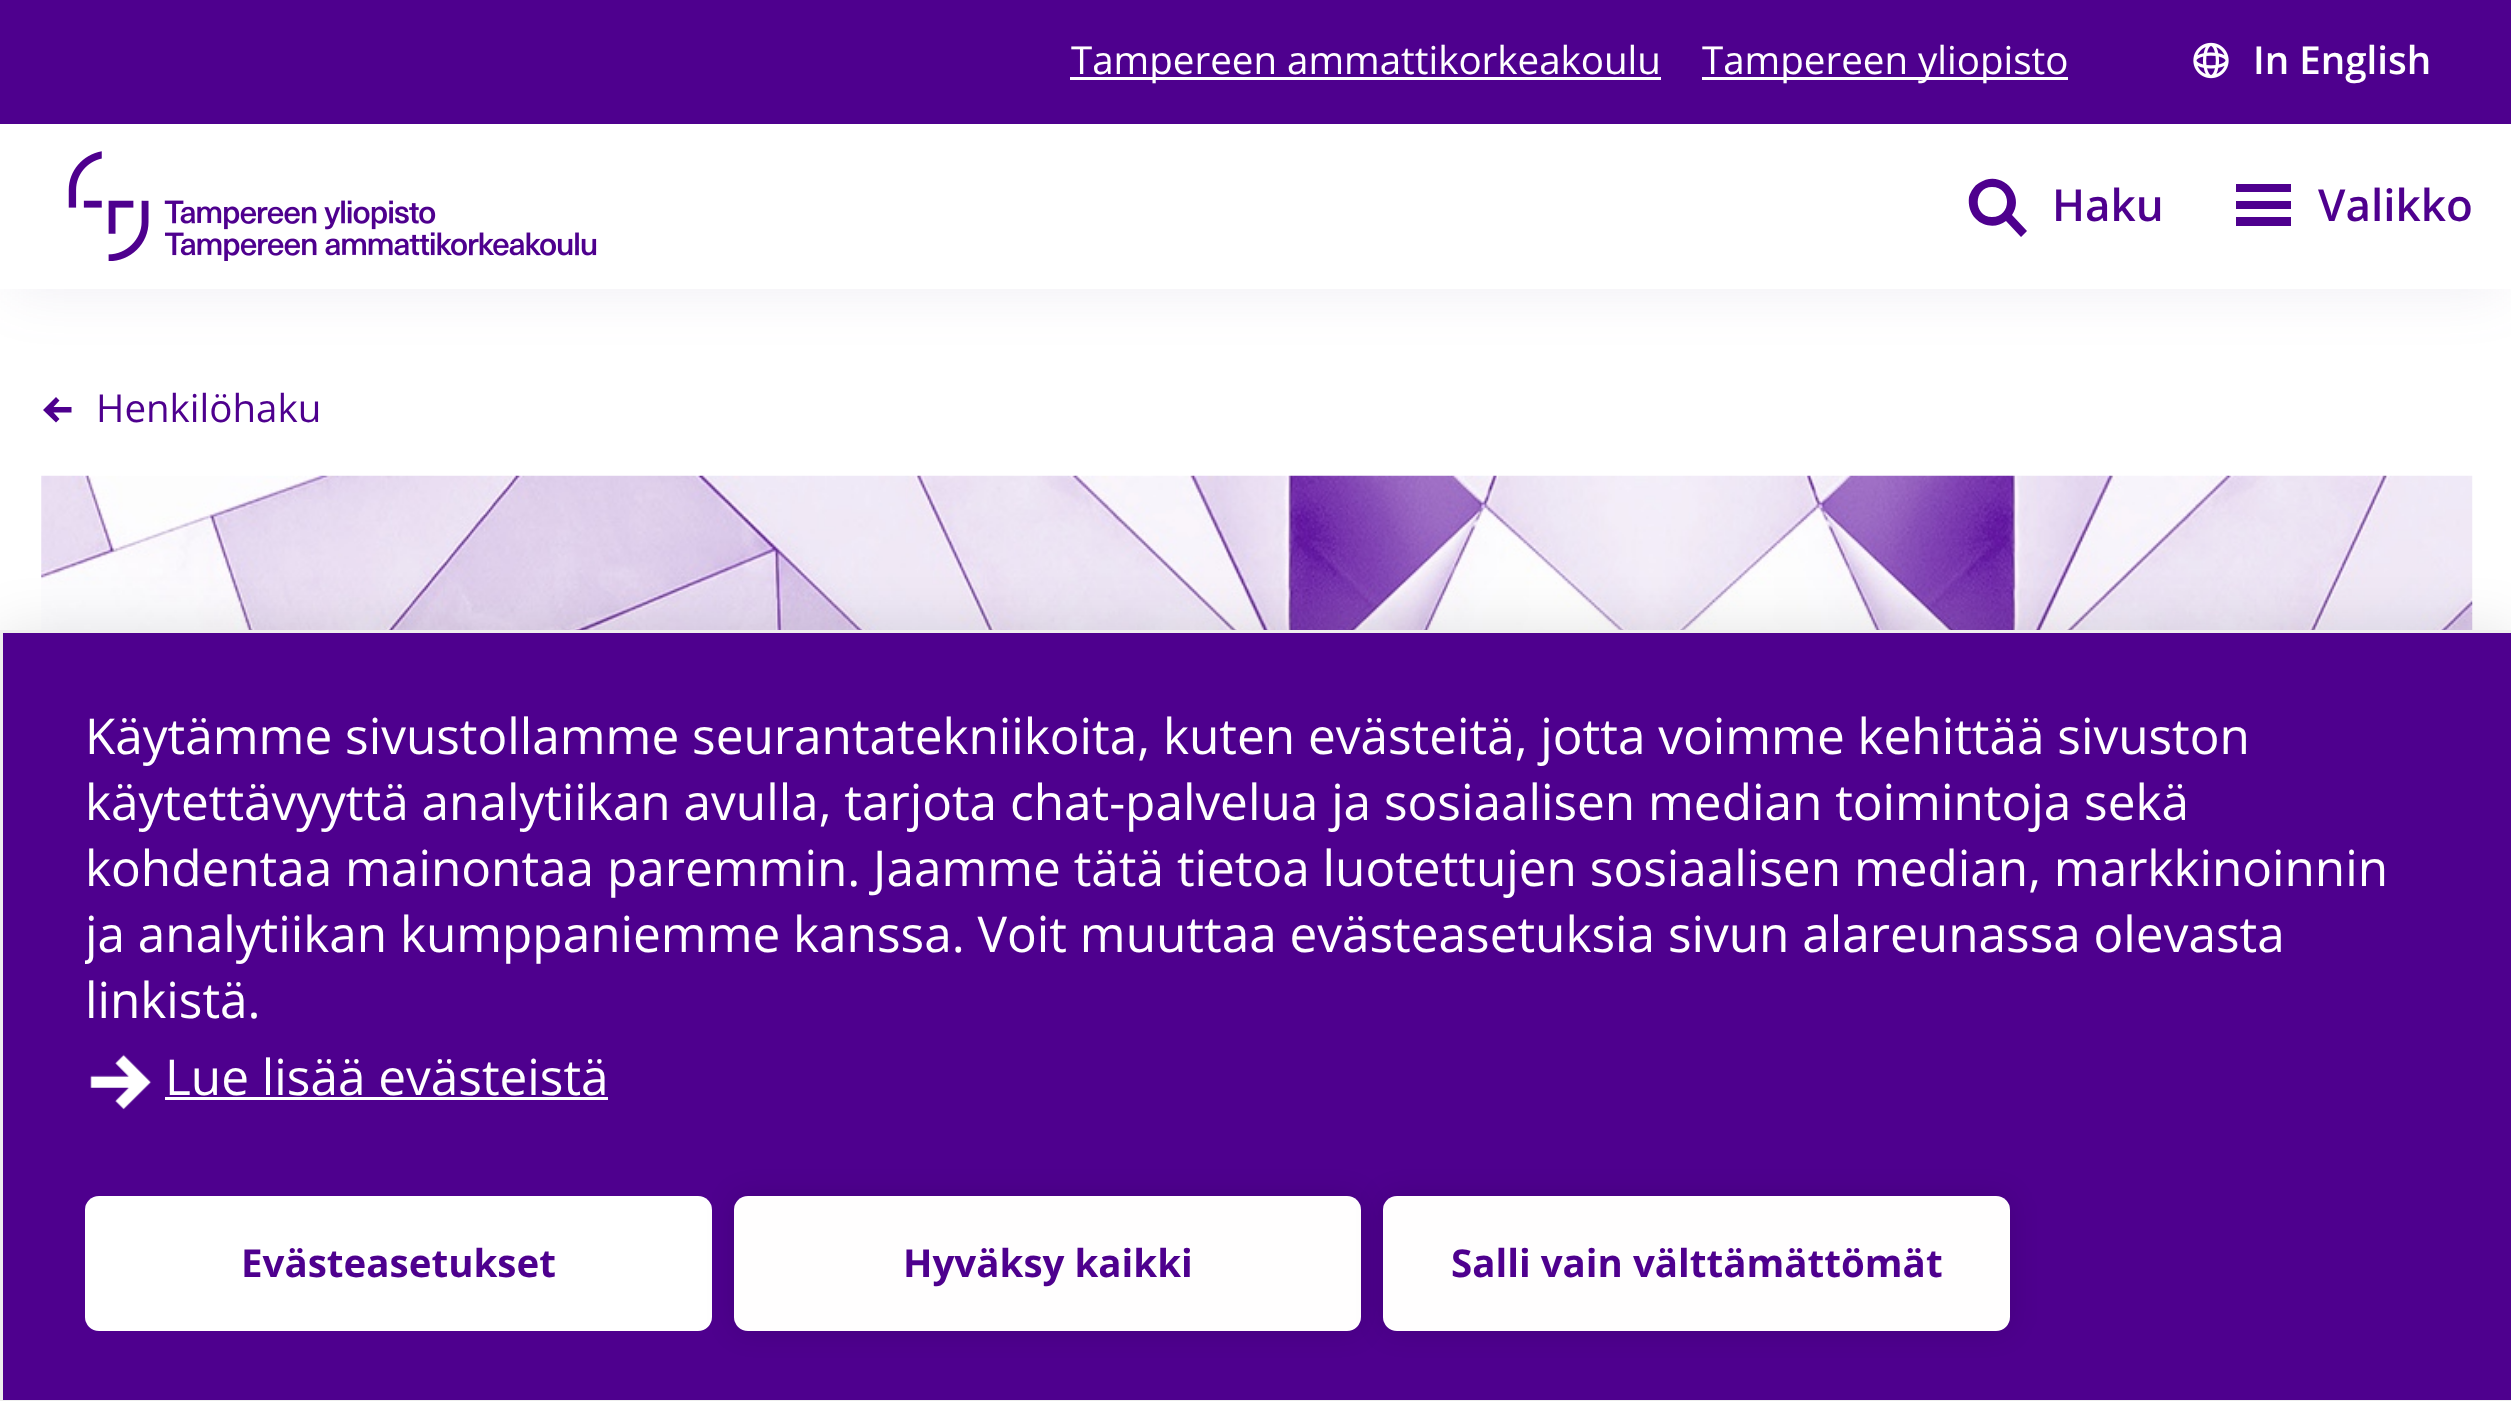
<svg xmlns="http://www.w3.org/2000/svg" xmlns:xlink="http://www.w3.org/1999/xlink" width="2511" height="1401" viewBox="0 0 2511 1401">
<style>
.cls-1{font:38.5px Open Sans;fill:#ffffff}
.cls-2{font:600 38.5px Open Sans;fill:#ffffff}
.cls-3{font:600 44px Open Sans;fill:#4e008e}
.cls-4{font:38.5px Open Sans;fill:#4e008e}
.cls-5{font:49.5px Open Sans;fill:#ffffff}
.cls-6{font:bold 38.5px Open Sans;fill:#4e008e}
</style>
<defs>
<clipPath id="clip1"><rect x="85" y="701" width="2343" height="495"/></clipPath>
</defs>
<rect width="100%" height="100%" fill="#ffffff"/>
<rect fill="#6e5d93" fill-opacity="0.1" filter="blur(27.5px)" x="11" y="25" width="2492" height="267"/>
<rect fill="#ffffff" x="0" y="124" width="2511" height="165"/>
<rect fill="#4e008e" x="0" y="0" width="2511" height="124"/>
<rect fill="#ffffff" x="1070" y="77" width="591" height="3"/>
<rect fill="#ffffff" x="1702" y="77" width="366" height="3"/>
<image xlink:href="image0.png" x="2193" y="42" width="36" height="37"/>
<image xlink:href="image1.png" x="68" y="151" width="529" height="110"/>
<path fill="#4e008e" d="M2027 231L2012 215C2026 195 2001 168 1979 183C1974 186 1971 191 1969 197C1968 205 1970 213 1976 219C1984 227 1997 228 2006 221L2021 237ZM1992 217C1973 217 1973 187 1992 187C2012 187 2012 217 1992 217"/>
<path fill="#4e008e" d="M2291 184V192H2236V184ZM2236 209H2291V201H2236ZM2236 226H2291V217H2236Z"/>
<path fill="#4e008e" d="M71.5 407H53.5L59.5 400.5L56 397L43 410L56 422.5L59.5 419L53.5 412.5H71.5Z"/>
<image xlink:href="image2.png" x="41" y="475" width="2432" height="155"/>
<rect fill="#000000" fill-opacity="0.1" filter="blur(27.5px)" x="0" y="630" width="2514" height="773"/>
<rect fill="#4e008e" stroke="#eeeeee" stroke-width="3" x="1.5" y="631.5" width="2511" height="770"/>
<image xlink:href="image3.png" x="90" y="1054" width="62" height="56"/>
<rect fill="#ffffff" x="165" y="1097" width="443" height="3"/>
<rect fill="#ffffff" x="85" y="1196" width="627" height="135" rx="14"/>
<rect fill="#000000" fill-opacity="0.12" filter="blur(14px)" x="734" y="1196" width="627" height="135" rx="14"/>
<rect fill="#fffefe" x="734" y="1196" width="627" height="135" rx="14"/>
<rect fill="#000000" fill-opacity="0.12" filter="blur(14px)" x="1383" y="1196" width="627" height="135" rx="14"/>
<rect fill="#fffefe" x="1383" y="1196" width="627" height="135" rx="14"/>
<text class="cls-1" x="1071" y="74">Tampereen ammattikorkeakoulu</text>
<text class="cls-1" x="1702" y="74">Tampereen yliopisto</text>
<text class="cls-2" x="2253" y="74">In English</text>
<text class="cls-3" x="2052" y="221">Haku</text>
<text class="cls-3" x="2318" y="221">Valikko</text>
<text class="cls-4" x="96" y="422">Henkilöhaku</text>
<text class="cls-5"><tspan x="85" y="754">Käytämme sivustollamme seurantatekniikoita, kuten evästeitä, jotta voimme kehittää sivuston</tspan><tspan x="85" y="820">käytettävyyttä analytiikan avulla, tarjota chat-palvelua ja sosiaalisen median toimintoja sekä</tspan><tspan x="85" y="886">kohdentaa mainontaa paremmin. Jaamme tätä tietoa luotettujen sosiaalisen median, markkinoinnin</tspan></text>
<g clip-path="url(#clip1)">
<text class="cls-5" x="85" y="952">ja analytiikan kumppaniemme kanssa. Voit muuttaa evästeasetuksia sivun alareunassa olevasta</text>
</g>
<text class="cls-5" x="85" y="1018">linkistä.</text>
<text class="cls-5" x="165" y="1095">Lue lisää evästeistä</text>
<text class="cls-6" x="241" y="1277">Evästeasetukset</text>
<text class="cls-6" x="903" y="1277">Hyväksy kaikki</text>
<text class="cls-6" x="1451" y="1277">Salli vain välttämättömät</text>
</svg>
